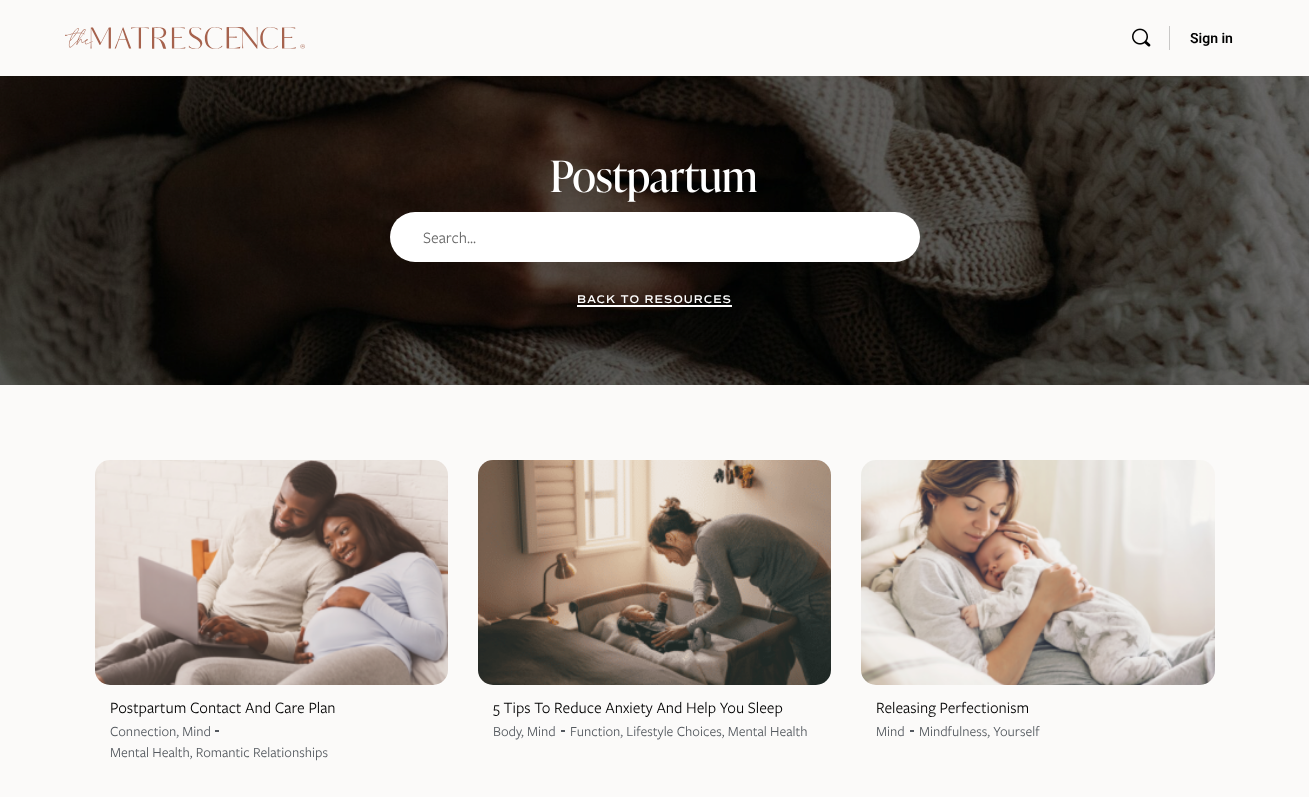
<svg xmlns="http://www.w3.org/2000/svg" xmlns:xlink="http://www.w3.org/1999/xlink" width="1309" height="797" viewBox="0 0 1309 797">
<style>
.cls-1{font:600 14px Roboto;fill:#000000}
.cls-2{font:43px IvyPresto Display;fill:#ffffff}
.cls-3{font:16.3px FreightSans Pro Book;fill:#666666}
.cls-4{font:600 11.25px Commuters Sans;letter-spacing:1px;fill:#ffffff}
.cls-5{font:16.3px FreightSans Pro Book;fill:#000000}
.cls-6{font:14.4px FreightSans Pro Book;fill:#54595f}
</style>
<rect width="100%" height="100%" fill="#fbfaf9"/>
<image xlink:href="image0.png" x="65" y="27" width="240" height="22"/>
<image xlink:href="image1.png" x="1132" y="28" width="19" height="19"/>
<rect fill="#c9c8c7" x="1169" y="26" width="1" height="24"/>
<image xlink:href="image2.png" x="0" y="76" width="1309" height="309"/>
<rect fill="#ffffff" x="390" y="212" width="530" height="50" rx="25"/>
<rect fill="#ffffff" x="577" y="305" width="155" height="2"/>
<image xlink:href="image3.png" x="95" y="460" width="353" height="225"/>
<rect fill="#54595f" x="215" y="730" width="4" height="2"/>
<image xlink:href="image4.png" x="478" y="460" width="353" height="225"/>
<rect fill="#54595f" x="561" y="730" width="4" height="2"/>
<image xlink:href="image5.png" x="861" y="460" width="354" height="225"/>
<rect fill="#54595f" x="910" y="730" width="4" height="2"/>
<text class="cls-1" x="1190" y="43">Sign in</text>
<text class="cls-2" x="550" y="192">Postpartum</text>
<text class="cls-3" x="423" y="243">Search...</text>
<text class="cls-4" x="577" y="303">BACK TO RESOURCES</text>
<text class="cls-5" x="110" y="713">Postpartum Contact And Care Plan</text>
<text class="cls-6"><tspan x="110" y="736">Connection, Mind</tspan><tspan x="110" y="757">Mental Health, Romantic Relationships</tspan></text>
<text class="cls-5" x="493" y="713">5 Tips To Reduce Anxiety And Help You Sleep</text>
<text class="cls-6" x="493" y="736">Body</text>
<text class="cls-6" x="521" y="736">, Mind</text>
<text class="cls-6" x="570" y="736">Function, Lifestyle Choices, Mental Health</text>
<text class="cls-5" x="876" y="713">Releasing Perfectionism</text>
<text class="cls-6" x="876" y="736">Mind</text>
<text class="cls-6" x="919" y="736">Mindfulness, Yourself</text>
</svg>
